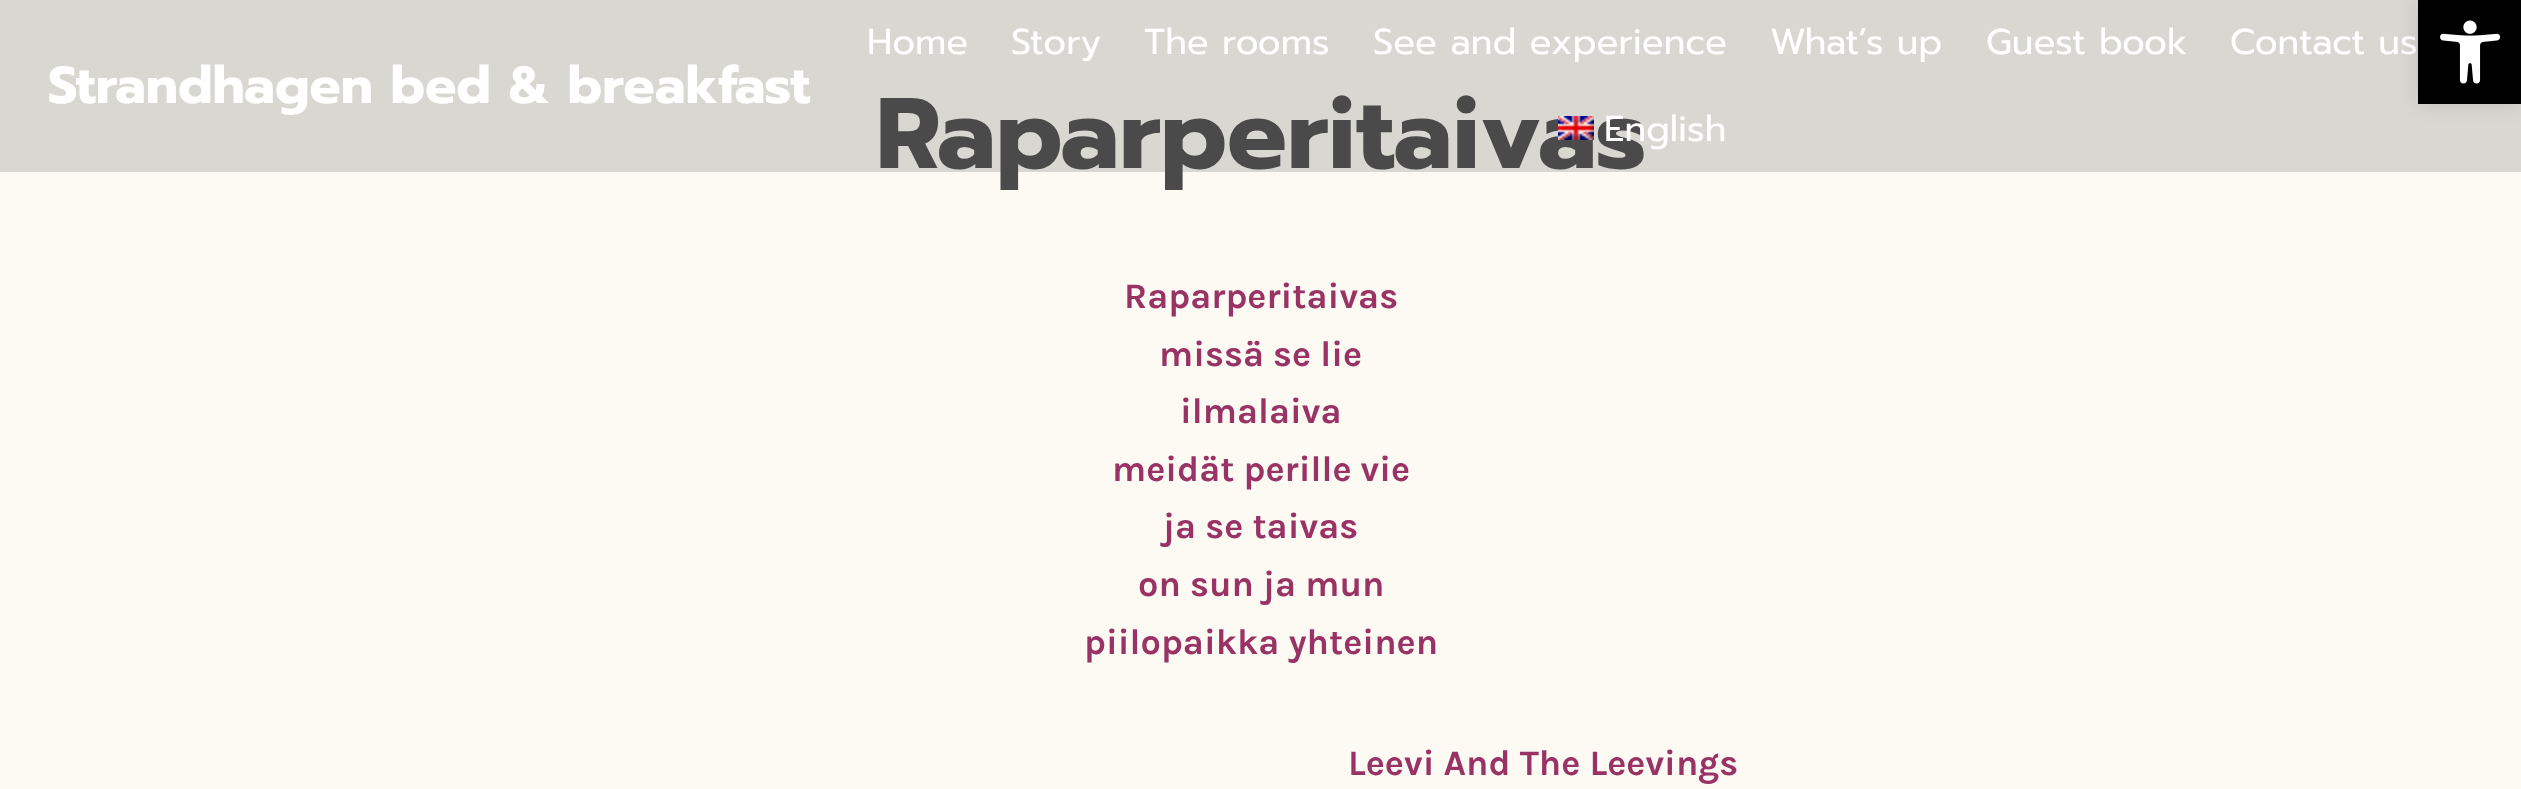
<svg xmlns="http://www.w3.org/2000/svg" xmlns:xlink="http://www.w3.org/1999/xlink" width="2521" height="789" viewBox="0 0 2521 789">
<style>
.cls-1{font:bold 100px Prompt;fill:#4a4a4a}
.cls-2{font:36px Prompt;fill:#ffffff}
.cls-3{font:bold 52px Prompt;fill:#ffffff}
.cls-4{font:bold 36px Karla;fill:#993366}
</style>
<rect width="100%" height="100%" fill="#fdfaf3"/>
<text class="cls-1" x="876" y="168">Raparperitaivas</text>
<rect fill="#4a4a4a" fill-opacity="0.2" x="0" y="0" width="2521" height="172"/>
<text class="cls-2" x="1604" y="141">English</text>
<image xlink:href="image0.png" x="1558" y="116" width="36" height="24"/>
<text class="cls-2" x="2230" y="54">Contact us</text>
<text class="cls-2" x="1986" y="54">Guest book</text>
<text class="cls-2" x="1770" y="54">What’s up</text>
<text class="cls-2" x="1373" y="54">See and experience</text>
<text class="cls-2" x="1144" y="54">The rooms</text>
<text class="cls-2" x="1011" y="54">Story</text>
<text class="cls-2" x="867" y="54">Home</text>
<text class="cls-3" x="48" y="103">Strandhagen bed &amp; breakfast</text>
<text class="cls-4" x="1124" y="308">Raparperitaivas</text>
<text class="cls-4" x="1159" y="366">missä se lie</text>
<text class="cls-4" x="1180" y="423">ilmalaiva</text>
<text class="cls-4" x="1112" y="481">meidät perille vie</text>
<text class="cls-4" x="1163" y="538">ja se taivas</text>
<text class="cls-4" x="1138" y="596">on sun ja mun</text>
<text class="cls-4" x="1084" y="654">piilopaikka yhteinen</text>
<text class="cls-4" x="1348" y="775">Leevi And The Leevings</text>
<rect fill="#000000" fill-opacity="0.1" filter="blur(10px)" x="2418" y="0" width="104" height="104"/>
<rect fill="#000000" x="2418" y="0" width="103" height="104"/>
<image xlink:href="image1.png" x="2440" y="20" width="61" height="64"/>
</svg>
